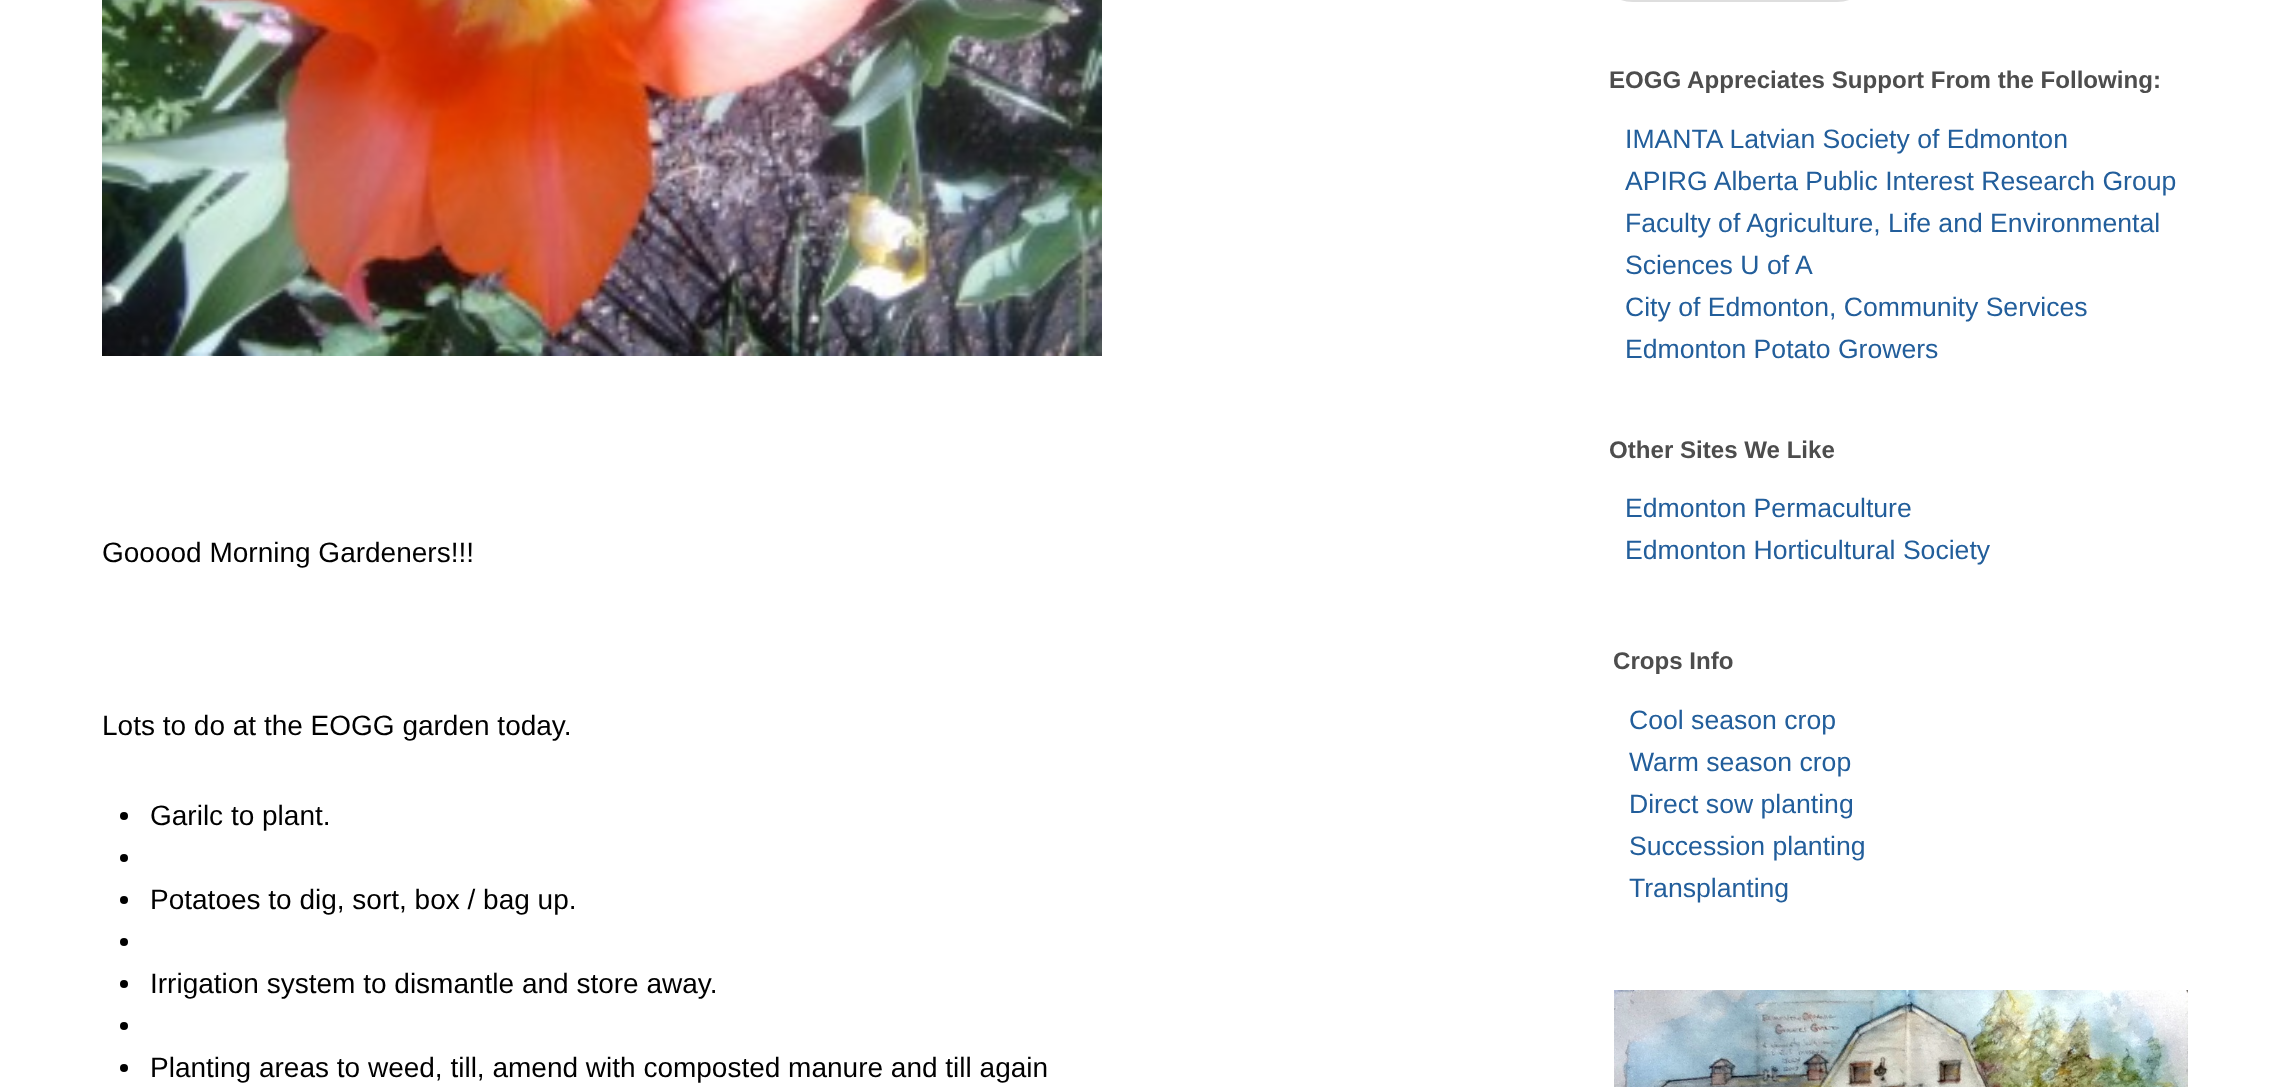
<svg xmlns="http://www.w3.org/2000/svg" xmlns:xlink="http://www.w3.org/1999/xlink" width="2284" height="1087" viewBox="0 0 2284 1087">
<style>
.cls-1{font:28px Liberation Sans;fill:#000000}
.cls-2{font:bold 24.1px Liberation Sans;fill:#4d4d4d}
.cls-3{font:26.6px Liberation Sans;fill:#225e9b}
</style>
<rect width="100%" height="100%" fill="#ffffff"/>
<image xlink:href="image0.png" x="102" y="0" width="1000" height="356"/>
<circle fill="#000000" cx="124" cy="816" r="4"/>
<circle fill="#000000" cx="124" cy="858" r="4"/>
<circle fill="#000000" cx="124" cy="900" r="4"/>
<circle fill="#000000" cx="124" cy="942" r="4"/>
<circle fill="#000000" cx="124" cy="984" r="4"/>
<circle fill="#000000" cx="124" cy="1026" r="4"/>
<circle fill="#000000" cx="124" cy="1068" r="4"/>
<rect fill="none" stroke="#dedede" stroke-width="2" x="1611" y="-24" width="248" height="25" rx="22"/>
<image xlink:href="image1.png" x="1614" y="990" width="574" height="97"/>
<text class="cls-1" x="102" y="562">Gooood Morning Gardeners!!!</text>
<text class="cls-1" x="102" y="735">Lots to do at the EOGG garden today.</text>
<text class="cls-1" x="150" y="825">Garilc to plant.</text>
<text class="cls-1" x="150" y="909">Potatoes to dig, sort, box / bag up.</text>
<text class="cls-1" x="150" y="993">Irrigation system to dismantle and store away.</text>
<text class="cls-1" x="150" y="1077">Planting areas to weed, till, amend with composted manure and till again</text>
<text class="cls-2" x="1609" y="88">EOGG Appreciates Support From the Following:</text>
<text class="cls-3"><tspan x="1625" y="148">IMANTA Latvian Society of Edmonton</tspan><tspan x="1625" y="190">APIRG Alberta Public Interest Research Group</tspan><tspan x="1625" y="232">Faculty of Agriculture, Life and Environmental</tspan><tspan x="1625" y="274">Sciences U of A</tspan><tspan x="1625" y="316">City of Edmonton, Community Services</tspan><tspan x="1625" y="358">Edmonton Potato Growers</tspan></text>
<text class="cls-2" x="1609" y="458">Other Sites We Like</text>
<text class="cls-3"><tspan x="1625" y="517">Edmonton Permaculture</tspan><tspan x="1625" y="559">Edmonton Horticultural Society</tspan></text>
<text class="cls-2" x="1613" y="669">Crops Info</text>
<text class="cls-3"><tspan x="1629" y="729">Cool season crop</tspan><tspan x="1629" y="771">Warm season crop</tspan><tspan x="1629" y="813">Direct sow planting</tspan><tspan x="1629" y="855">Succession planting</tspan><tspan x="1629" y="897">Transplanting</tspan></text>
</svg>
